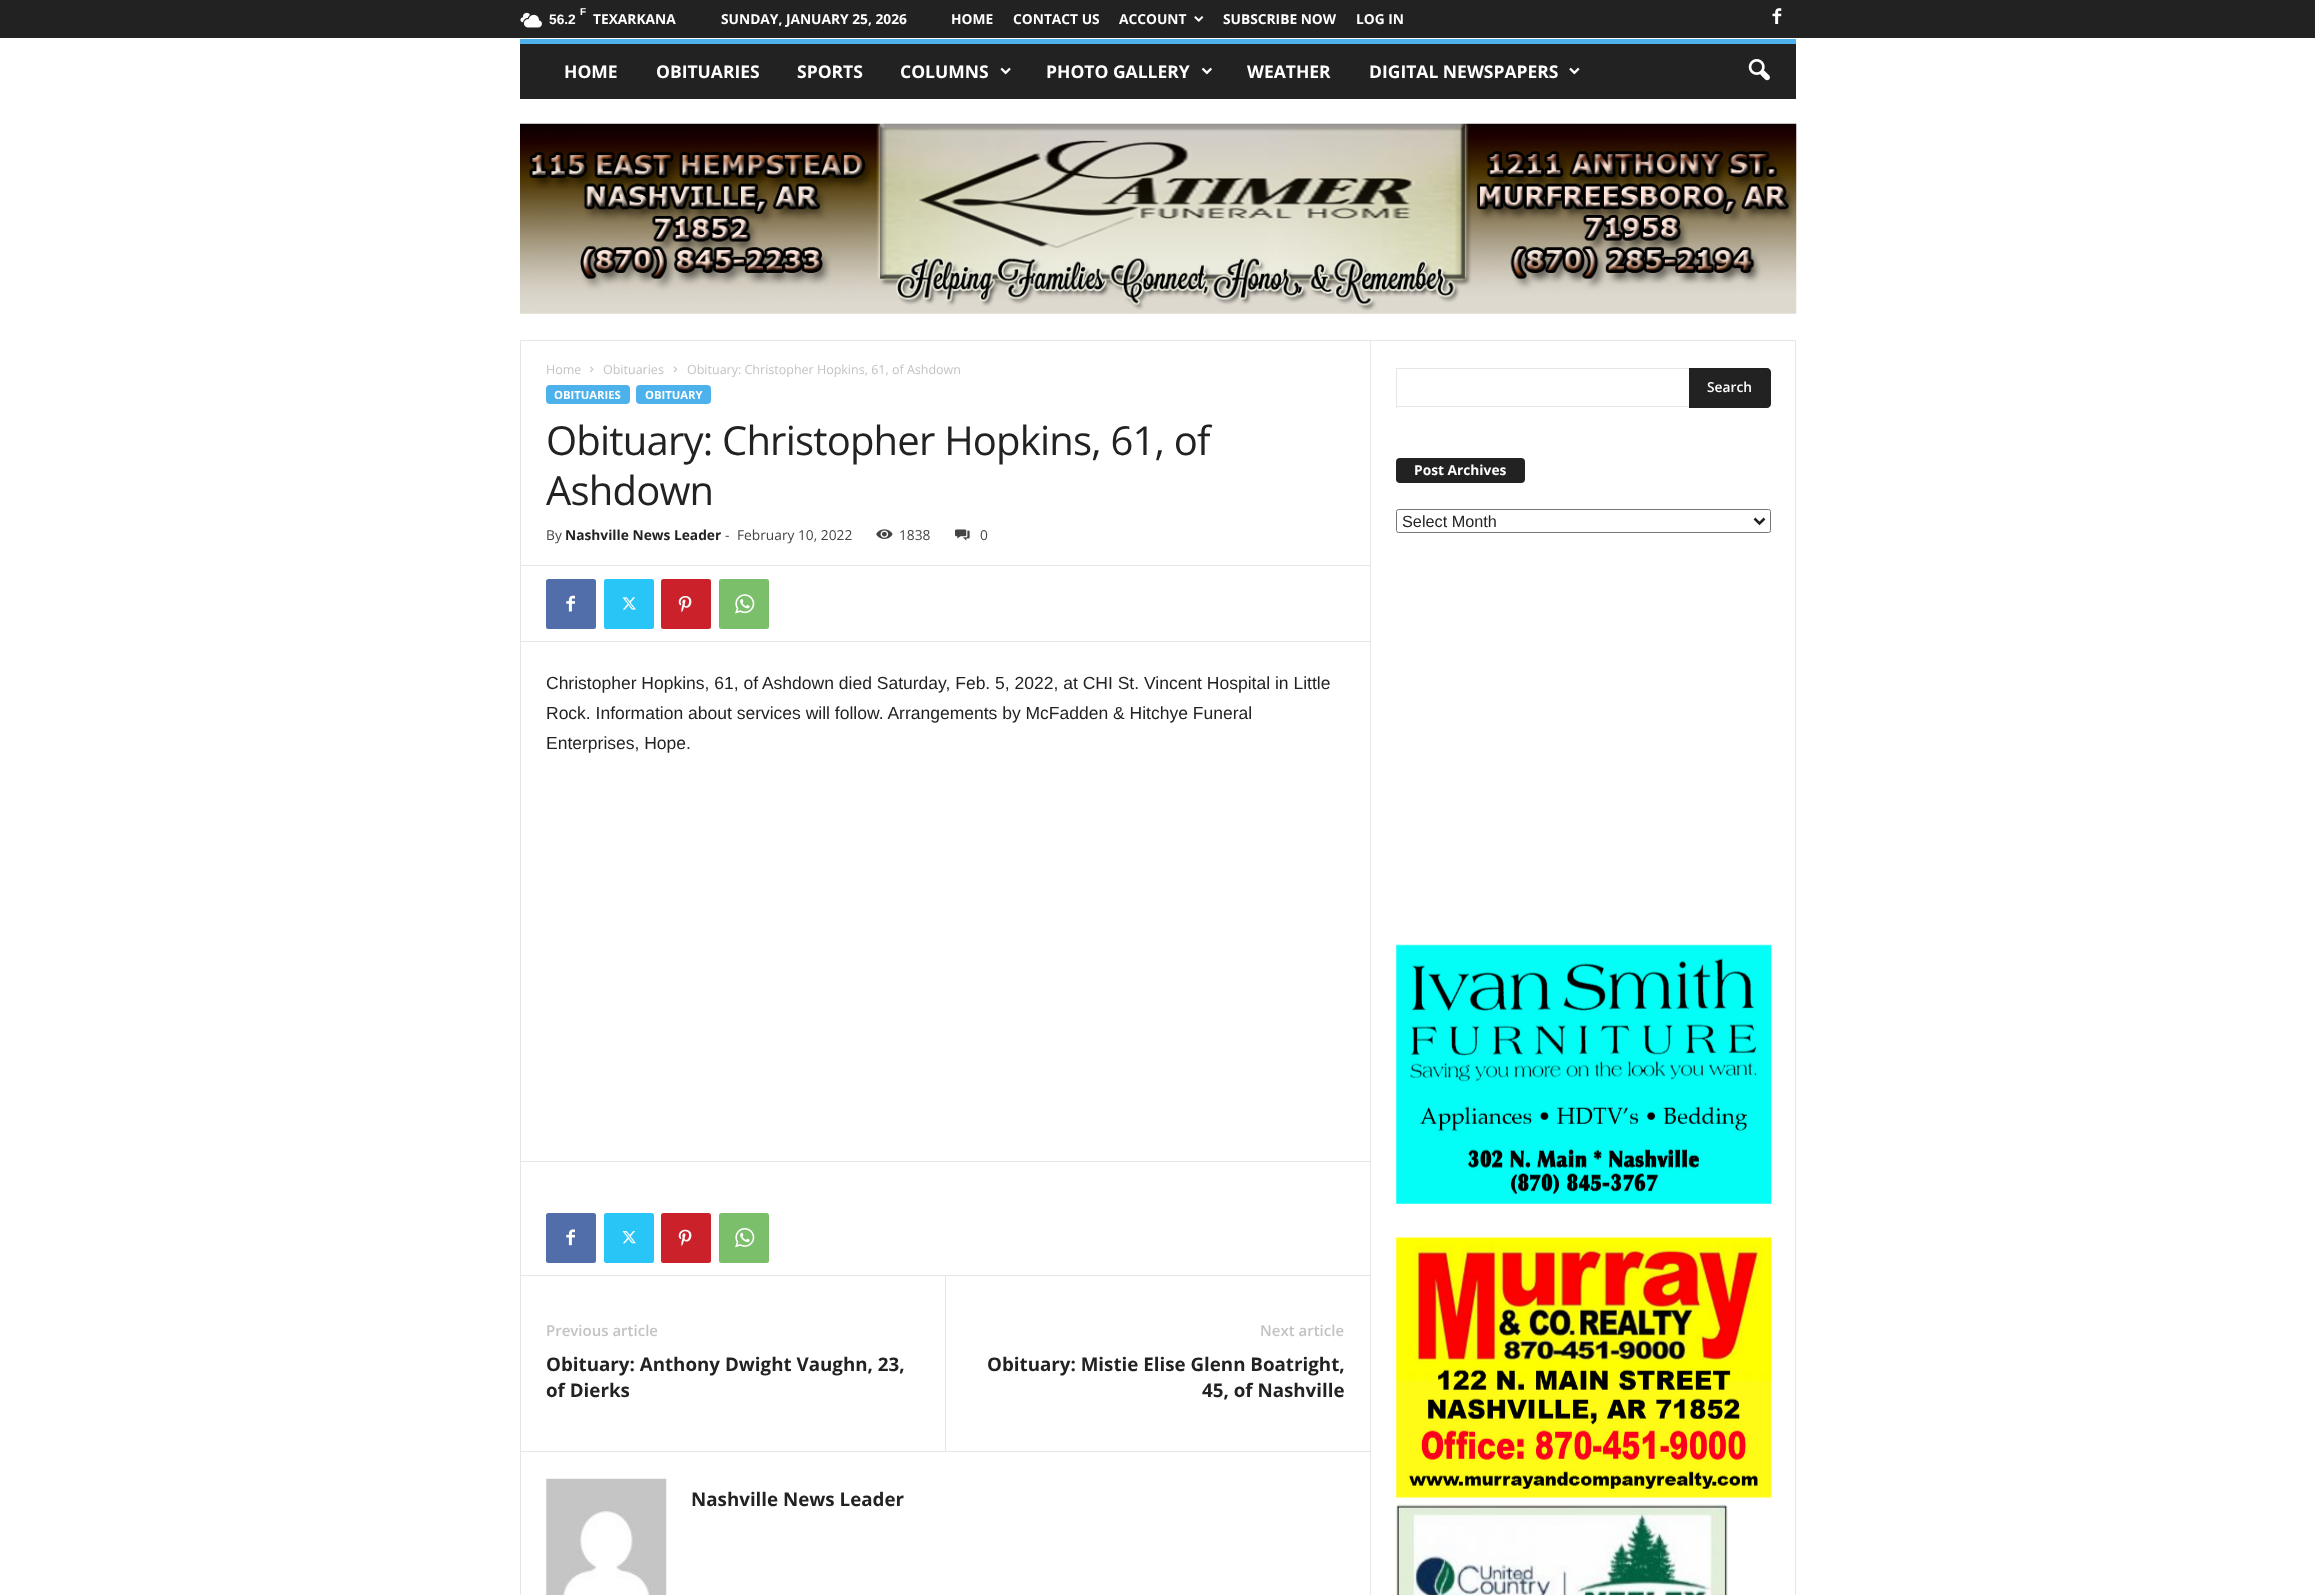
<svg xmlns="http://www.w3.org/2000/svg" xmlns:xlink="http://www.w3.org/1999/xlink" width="2315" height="1595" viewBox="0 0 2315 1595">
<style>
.cls-1{font:bold 10px Liberation Sans;fill:#ffffff}
.cls-2{font:bold 13.75px Liberation Sans;fill:#ffffff}
.cls-3{font:bold 13.75px Open Sans;fill:#ffffff}
.cls-4{font:bold 17.5px Open Sans;fill:#ffffff}
.cls-5{font:12.5px Open Sans;fill:#c3c3c3}
.cls-6{font:bold 11.25px Open Sans;fill:#ffffff}
.cls-7{font:40px Open Sans;letter-spacing:-0.8px;fill:#222222}
.cls-8{font:13.75px Open Sans;fill:#444444}
.cls-9{font:bold 13.75px Open Sans;fill:#222222}
.cls-10{font:17.5px Liberation Sans;fill:#222222}
.cls-11{font:600 15px Open Sans;fill:#c3c3c3}
.cls-12{font:bold 18.75px Open Sans;fill:#222222}
.cls-13{font:600 13.75px Open Sans;fill:#ffffff}
.cls-14{font:16.25px Liberation Sans;fill:#222222}
</style>
<rect width="100%" height="100%" fill="#ffffff"/>
<rect fill="#222222" x="0" y="0" width="2315" height="38"/>
<image xlink:href="image0.png" x="520" y="12" width="22" height="16"/>
<image xlink:href="image1.png" x="1194" y="16" width="10" height="6"/>
<image xlink:href="image2.png" x="1772" y="8" width="10" height="16"/>
<rect fill="#222222" x="520" y="44" width="1276" height="55"/>
<rect fill="#4db2ec" x="520" y="39" width="1276" height="5"/>
<image xlink:href="image3.png" x="1000" y="67" width="11" height="8"/>
<image xlink:href="image4.png" x="1201" y="67" width="11" height="8"/>
<image xlink:href="image5.png" x="1569" y="67" width="11" height="8"/>
<image xlink:href="image6.png" x="1748" y="59" width="22" height="22"/>
<rect fill="#e6e6e6" x="520" y="340" width="1276" height="1"/>
<image xlink:href="image7.png" x="520" y="123" width="1277" height="191"/>
<rect fill="#e6e6e6" x="520" y="341" width="1" height="1254"/>
<image xlink:href="image8.png" x="590" y="366" width="4" height="7"/>
<image xlink:href="image9.png" x="673" y="366" width="4" height="7"/>
<rect fill="#4db2ec" x="546" y="385" width="84" height="19" rx="4"/>
<rect fill="#4db2ec" x="636" y="385" width="75" height="19" rx="4"/>
<image xlink:href="image10.png" x="876" y="529" width="17" height="10"/>
<image xlink:href="image11.png" x="955" y="529" width="15" height="12"/>
<rect fill="#e6e6e6" x="521" y="565" width="849" height="1"/>
<rect fill="#516eab" x="546" y="579" width="50" height="50" rx="2.5"/>
<image xlink:href="image12.png" x="566" y="595" width="9" height="17"/>
<rect fill="#29c5f6" x="604" y="579" width="50" height="50" rx="2.5"/>
<image xlink:href="image13.png" x="622" y="597" width="14" height="13"/>
<rect fill="#ca212a" x="661" y="579" width="50" height="50" rx="2.5"/>
<image xlink:href="image14.png" x="678" y="596" width="14" height="17"/>
<rect fill="#7bbf6a" x="719" y="579" width="50" height="50" rx="2.5"/>
<image xlink:href="image15.png" x="735" y="594" width="20" height="20"/>
<rect fill="#e6e6e6" x="521" y="641" width="849" height="1"/>
<rect fill="#e6e6e6" x="521" y="1161" width="849" height="1"/>
<rect fill="#516eab" x="546" y="1213" width="50" height="50" rx="2.5"/>
<image xlink:href="image16.png" x="566" y="1229" width="9" height="17"/>
<rect fill="#29c5f6" x="604" y="1213" width="50" height="50" rx="2.5"/>
<image xlink:href="image17.png" x="622" y="1231" width="14" height="13"/>
<rect fill="#ca212a" x="661" y="1213" width="50" height="50" rx="2.5"/>
<image xlink:href="image18.png" x="678" y="1229" width="14" height="17"/>
<rect fill="#7bbf6a" x="719" y="1213" width="50" height="50" rx="2.5"/>
<image xlink:href="image19.png" x="735" y="1227" width="20" height="21"/>
<rect fill="#e6e6e6" x="521" y="1275" width="849" height="1"/>
<rect fill="#e6e6e6" x="945" y="1276" width="1" height="175"/>
<rect fill="#e6e6e6" x="521" y="1451" width="849" height="1"/>
<image xlink:href="image20.png" x="546" y="1478" width="121" height="117"/>
<rect fill="#e6e6e6" x="1370" y="341" width="1" height="1254"/>
<rect fill="#e6e6e6" x="1396" y="368" width="293" height="1"/>
<rect fill="#e6e6e6" x="1396" y="406" width="293" height="1"/>
<rect fill="#e6e6e6" x="1396" y="368" width="1" height="40"/>
<path fill="#222222" d="M1689 368H1767C1769 368 1771 370 1771 372V404C1771 406 1769 408 1767 408H1689Z"/>
<rect fill="#222222" x="1396" y="458" width="129" height="25" rx="4"/>
<rect fill="none" stroke="#767676" x="1396.5" y="509.5" width="374" height="23" rx="2"/>
<path fill="none" stroke="#222222" stroke-width="2.5" d="M1754.5 518.5L1759.5 523.5L1764.5 518.5"/>
<image xlink:href="image21.png" x="1396" y="944" width="376" height="260"/>
<image xlink:href="image22.png" x="1396" y="1236" width="376" height="262"/>
<image xlink:href="image23.png" x="1396" y="1504" width="332" height="91"/>
<rect fill="#e6e6e6" x="1795" y="341" width="1" height="1254"/>
<text class="cls-1" x="580" y="15">F</text>
<text class="cls-2" x="549" y="24">56.2</text>
<text class="cls-3" x="593" y="24">TEXARKANA</text>
<text class="cls-3" x="721" y="24">SUNDAY, JANUARY 25, 2026</text>
<text class="cls-3" x="951" y="24">HOME</text>
<text class="cls-3" x="1013" y="24">CONTACT US</text>
<text class="cls-3" x="1119" y="24">ACCOUNT</text>
<text class="cls-3" x="1223" y="24">SUBSCRIBE NOW</text>
<text class="cls-3" x="1356" y="24">LOG IN</text>
<text class="cls-4" x="564" y="78">HOME</text>
<text class="cls-4" x="656" y="78">OBITUARIES</text>
<text class="cls-4" x="797" y="78">SPORTS</text>
<text class="cls-4" x="900" y="78">COLUMNS</text>
<text class="cls-4" x="1046" y="78">PHOTO GALLERY</text>
<text class="cls-4" x="1247" y="78">WEATHER</text>
<text class="cls-4" x="1369" y="78">DIGITAL NEWSPAPERS</text>
<text class="cls-5" x="546" y="374">Home</text>
<text class="cls-5" x="603" y="374">Obituaries</text>
<text class="cls-5" x="687" y="374">Obituary: Christopher Hopkins, 61, of Ashdown</text>
<text class="cls-6" x="554" y="399">OBITUARIES</text>
<text class="cls-6" x="645" y="399">OBITUARY</text>
<text class="cls-7"><tspan x="546" y="455">Obituary: Christopher Hopkins, 61, of</tspan><tspan x="546" y="505">Ashdown</tspan></text>
<text class="cls-8" x="546" y="540">By</text>
<text class="cls-9" x="565" y="540">Nashville News Leader</text>
<text class="cls-8" x="725" y="540">-</text>
<text class="cls-8" x="737" y="540">February 10, 2022</text>
<text class="cls-8" x="899" y="540">1838</text>
<text class="cls-8" x="980" y="540">0</text>
<text class="cls-10"><tspan x="546" y="689">Christopher Hopkins, 61, of Ashdown died Saturday, Feb. 5, 2022, at CHI St. Vincent Hospital in Little</tspan><tspan x="546" y="719">Rock. Information about services will follow. Arrangements by McFadden &amp; Hitchye Funeral</tspan><tspan x="546" y="749">Enterprises, Hope.</tspan></text>
<text class="cls-11" x="546" y="1336">Previous article</text>
<text class="cls-12"><tspan x="546" y="1371">Obituary: Anthony Dwight Vaughn, 23,</tspan><tspan x="546" y="1397">of Dierks</tspan></text>
<text class="cls-11" x="1260" y="1336">Next article</text>
<text class="cls-12" x="987" y="1371">Obituary: Mistie Elise Glenn Boatright,</text>
<text class="cls-12" x="1202" y="1397">45, of Nashville</text>
<text class="cls-12" x="691" y="1506">Nashville News Leader</text>
<text class="cls-13" x="1707" y="392">Search</text>
<text class="cls-3" x="1414" y="475">Post Archives</text>
<text class="cls-14" x="1402" y="527">Select Month</text>
</svg>
